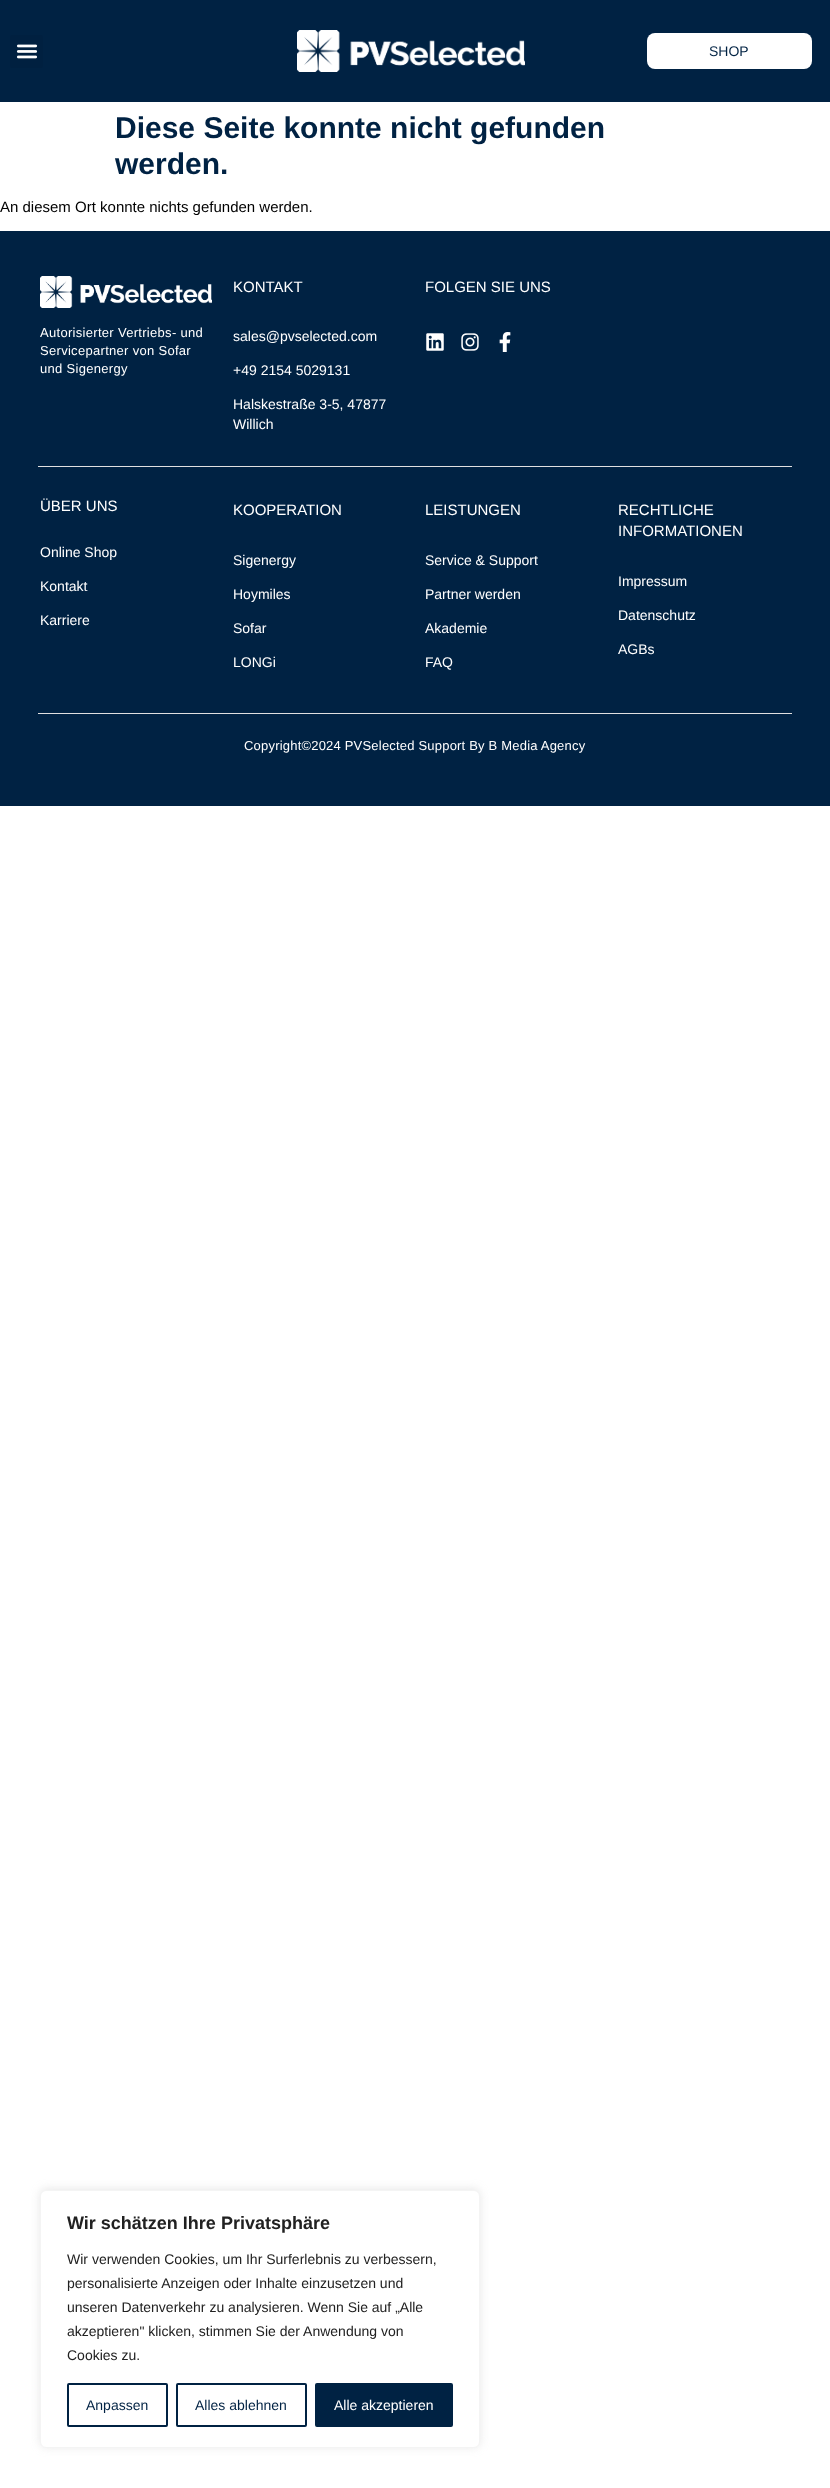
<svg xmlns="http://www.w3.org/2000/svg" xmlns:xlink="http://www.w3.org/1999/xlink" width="830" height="2488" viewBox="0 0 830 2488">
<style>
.cls-1{font:14px Liberation Sans;fill:#002243}
.cls-2{font:bold 30px Liberation Sans;fill:#002243}
.cls-3{font:15px Liberation Sans;fill:#000000}
.cls-4{font:15px Liberation Sans;fill:#ffffff}
.cls-5{font:14px Liberation Sans;fill:#ffffff}
.cls-6{font:13px Liberation Sans;letter-spacing:0.3px;fill:#ffffff}
.cls-7{font:13px Liberation Sans;letter-spacing:0.2px;fill:#ffffff}
.cls-8{font:bold 18px Liberation Sans;fill:#212121}
.cls-9{font:14px Liberation Sans;fill:#212121}
</style>
<rect width="100%" height="100%" fill="#ffffff"/>
<rect fill="#002243" x="0" y="0" width="830" height="102"/>
<rect fill="#002040" x="10" y="35" width="33" height="33" rx="3"/>
<image xlink:href="image0.png" x="16" y="44" width="22" height="15"/>
<image xlink:href="image1.png" x="297" y="30" width="228" height="42"/>
<rect fill="#ffffff" x="647" y="33" width="165" height="36" rx="8"/>
<rect fill="#002243" x="0" y="231" width="830" height="575"/>
<image xlink:href="image2.png" x="426" y="333" width="18" height="18"/>
<image xlink:href="image3.png" x="461" y="333" width="18" height="18"/>
<image xlink:href="image4.png" x="499" y="332" width="12" height="20"/>
<image xlink:href="image5.png" x="40" y="276" width="172" height="32"/>
<rect fill="#e0e0e0" x="38" y="466" width="754" height="1"/>
<rect fill="#e0e0e0" x="38" y="713" width="754" height="1"/>
<rect fill="#acabab" fill-opacity="0.3" filter="blur(5px)" x="40" y="2189" width="440" height="258" rx="6"/>
<rect fill="#ffffff" stroke="#f4f4f4" x="40.5" y="2190.5" width="439" height="257" rx="5.5"/>
<rect fill="none" stroke="#002243" stroke-width="2" x="68" y="2384" width="99" height="42" rx="1"/>
<rect fill="none" stroke="#002243" stroke-width="2" x="177" y="2384" width="129" height="42" rx="1"/>
<rect fill="#002243" stroke="#002243" stroke-width="2" x="316" y="2384" width="136" height="42" rx="1"/>
<text class="cls-1" x="709" y="56">SHOP</text>
<text class="cls-2"><tspan x="115" y="138">Diese Seite konnte nicht gefunden</tspan><tspan x="115" y="174">werden.</tspan></text>
<text class="cls-3" x="0" y="212">An diesem Ort konnte nichts gefunden werden.</text>
<text class="cls-4" x="233" y="292">KONTAKT</text>
<text class="cls-5" x="233" y="341">sales@pvselected.com</text>
<text class="cls-5" x="233" y="375">+49 2154 5029131</text>
<text class="cls-5"><tspan x="233" y="409">Halskestraße 3-5, 47877</tspan><tspan x="233" y="429">Willich</tspan></text>
<text class="cls-4" x="425" y="292">FOLGEN SIE UNS</text>
<text class="cls-6"><tspan x="40" y="337">Autorisierter Vertriebs- und</tspan><tspan x="40" y="355">Servicepartner von Sofar</tspan><tspan x="40" y="373">und Sigenergy</tspan></text>
<text class="cls-4" x="40" y="511">ÜBER UNS</text>
<text class="cls-5" x="40" y="557">Online Shop</text>
<text class="cls-5" x="40" y="591">Kontakt</text>
<text class="cls-5" x="40" y="625">Karriere</text>
<text class="cls-4" x="233" y="515">KOOPERATION</text>
<text class="cls-5" x="233" y="565">Sigenergy</text>
<text class="cls-5" x="233" y="599">Hoymiles</text>
<text class="cls-5" x="233" y="633">Sofar</text>
<text class="cls-5" x="233" y="667">LONGi</text>
<text class="cls-4" x="425" y="515">LEISTUNGEN</text>
<text class="cls-5" x="425" y="565">Service &amp; Support</text>
<text class="cls-5" x="425" y="599">Partner werden</text>
<text class="cls-5" x="425" y="633">Akademie</text>
<text class="cls-5" x="425" y="667">FAQ</text>
<text class="cls-4"><tspan x="618" y="515">RECHTLICHE</tspan><tspan x="618" y="536">INFORMATIONEN</tspan></text>
<text class="cls-5" x="618" y="586">Impressum</text>
<text class="cls-5" x="618" y="620">Datenschutz</text>
<text class="cls-5" x="618" y="654">AGBs</text>
<text class="cls-7" x="244" y="750">Copyright©2024 PVSelected Support By B Media Agency</text>
<text class="cls-8" x="67" y="2229">Wir schätzen Ihre Privatsphäre</text>
<text class="cls-9"><tspan x="67" y="2264">Wir verwenden Cookies, um Ihr Surferlebnis zu verbessern,</tspan><tspan x="67" y="2288">personalisierte Anzeigen oder Inhalte einzusetzen und</tspan><tspan x="67" y="2312">unseren Datenverkehr zu analysieren. Wenn Sie auf „Alle</tspan><tspan x="67" y="2336">akzeptieren" klicken, stimmen Sie der Anwendung von</tspan><tspan x="67" y="2360">Cookies zu.</tspan></text>
<text class="cls-1" x="86" y="2410">Anpassen</text>
<text class="cls-1" x="195" y="2410">Alles ablehnen</text>
<text class="cls-5" x="334" y="2410">Alle akzeptieren</text>
</svg>
